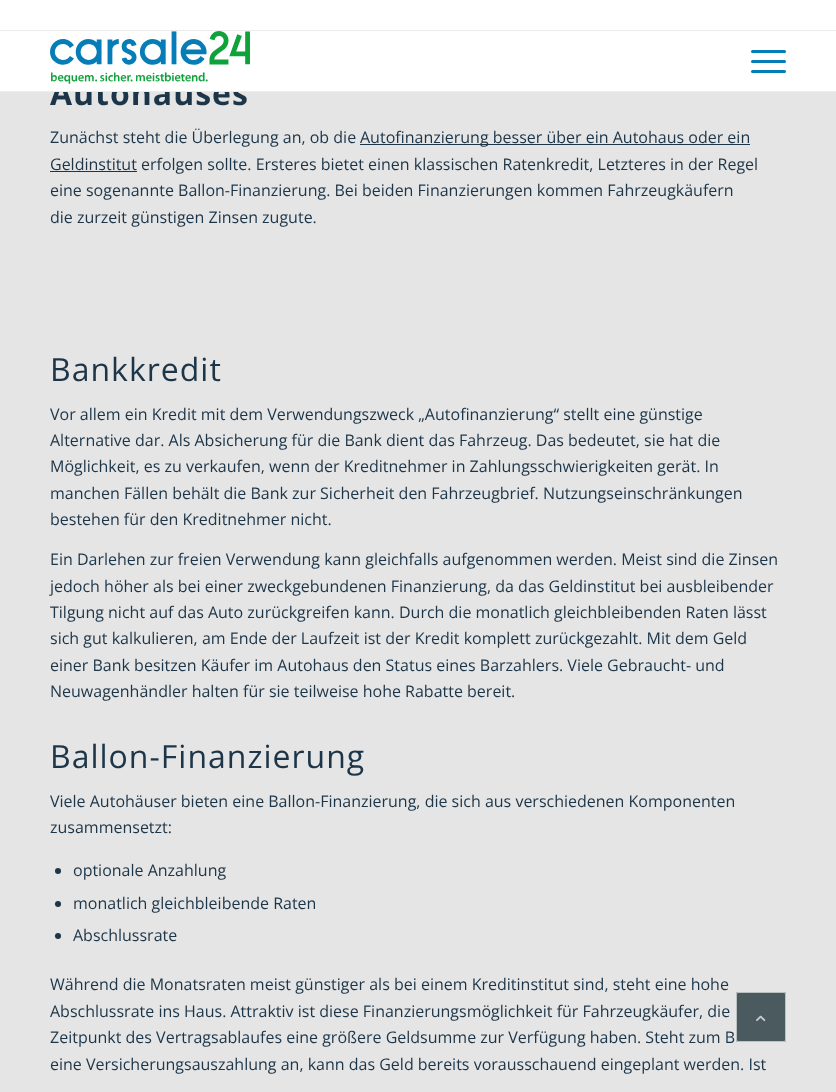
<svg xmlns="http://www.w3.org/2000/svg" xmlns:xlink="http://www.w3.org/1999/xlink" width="836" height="1092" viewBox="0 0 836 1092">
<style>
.cls-1{font:bold 32px Open Sans;letter-spacing:1px;fill:#1c3548}
.cls-2{font:16px Open Sans;fill:#1c3548}
.cls-3{font:32px Open Sans;letter-spacing:1px;fill:#1c3548}
</style>
<rect width="100%" height="100%" fill="#e5e5e5"/>
<rect fill="#ffffff" x="0" y="0" width="836" height="30"/>
<rect fill="#ebebeb" x="0" y="30" width="836" height="1"/>
<rect fill="#1c3548" x="360" y="144" width="390" height="1"/>
<rect fill="#1c3548" x="50" y="171" width="87" height="1"/>
<circle fill="#1c3548" cx="58" cy="871" r="3"/>
<circle fill="#1c3548" cx="58" cy="904" r="3"/>
<circle fill="#1c3548" cx="58" cy="936" r="3"/>
<rect fill="#0a1f27" fill-opacity="0.7" x="736" y="992" width="50" height="50" rx="2"/>
<rect fill="none" stroke="#ebebeb" stroke-opacity="0.7" x="736.5" y="992.5" width="49" height="49" rx="1.5"/>
<image xlink:href="image1.png" x="756" y="1015" width="10" height="7"/>
<text class="cls-1" x="50" y="105">Autohauses</text>
<rect fill="#ffffff" x="0" y="31" width="836" height="60"/>
<rect fill="#077db7" x="751" y="70" width="35" height="3" rx="1.5"/>
<rect fill="#077db7" x="751" y="50" width="35" height="3" rx="1.5"/>
<rect fill="#077db7" x="751" y="60" width="35" height="3" rx="1.5"/>
<image xlink:href="image0.png" x="50" y="31" width="200" height="53"/>
<rect fill="#ebebeb" x="0" y="91" width="836" height="1"/>
<text class="cls-2" x="50" y="143">Zunächst steht die Überlegung an, ob die</text>
<text class="cls-2" x="360" y="143">Autofinanzierung besser über ein Autohaus oder ein</text>
<text class="cls-2"><tspan x="50" y="170">Geldinstitut erfolgen sollte. Ersteres bietet einen klassischen Ratenkredit, Letzteres in der Regel</tspan><tspan x="50" y="196">eine sogenannte Ballon-Finanzierung. Bei beiden Finanzierungen kommen Fahrzeugkäufern</tspan><tspan x="50" y="223">die zurzeit günstigen Zinsen zugute.</tspan></text>
<text class="cls-3" x="50" y="381">Bankkredit</text>
<text class="cls-2"><tspan x="50" y="420">Vor allem ein Kredit mit dem Verwendungszweck „Autofinanzierung“ stellt eine günstige</tspan><tspan x="50" y="446">Alternative dar. Als Absicherung für die Bank dient das Fahrzeug. Das bedeutet, sie hat die</tspan><tspan x="50" y="472">Möglichkeit, es zu verkaufen, wenn der Kreditnehmer in Zahlungsschwierigkeiten gerät. In</tspan><tspan x="50" y="499">manchen Fällen behält die Bank zur Sicherheit den Fahrzeugbrief. Nutzungseinschränkungen</tspan><tspan x="50" y="525">bestehen für den Kreditnehmer nicht.</tspan></text>
<text class="cls-2"><tspan x="50" y="565">Ein Darlehen zur freien Verwendung kann gleichfalls aufgenommen werden. Meist sind die Zinsen</tspan><tspan x="50" y="592">jedoch höher als bei einer zweckgebundenen Finanzierung, da das Geldinstitut bei ausbleibender</tspan><tspan x="50" y="618">Tilgung nicht auf das Auto zurückgreifen kann. Durch die monatlich gleichbleibenden Raten lässt</tspan><tspan x="50" y="644">sich gut kalkulieren, am Ende der Laufzeit ist der Kredit komplett zurückgezahlt. Mit dem Geld</tspan><tspan x="50" y="671">einer Bank besitzen Käufer im Autohaus den Status eines Barzahlers. Viele Gebraucht- und</tspan><tspan x="50" y="697">Neuwagenhändler halten für sie teilweise hohe Rabatte bereit.</tspan></text>
<text class="cls-3" x="50" y="768">Ballon-Finanzierung</text>
<text class="cls-2"><tspan x="50" y="807">Viele Autohäuser bieten eine Ballon-Finanzierung, die sich aus verschiedenen Komponenten</tspan><tspan x="50" y="833">zusammensetzt:</tspan></text>
<text class="cls-2" x="73" y="876">optionale Anzahlung</text>
<text class="cls-2" x="73" y="909">monatlich gleichbleibende Raten</text>
<text class="cls-2" x="73" y="941">Abschlussrate</text>
<text class="cls-2"><tspan x="50" y="990">Während die Monatsraten meist günstiger als bei einem Kreditinstitut sind, steht eine hohe</tspan><tspan x="50" y="1017">Abschlussrate ins Haus. Attraktiv ist diese Finanzierungsmöglichkeit für Fahrzeugkäufer, die</tspan><tspan x="50" y="1043">Zeitpunkt des Vertragsablaufes eine größere Geldsumme zur Verfügung haben. Steht zum B</tspan><tspan x="50" y="1070">eine Versicherungsauszahlung an, kann das Geld bereits vorausschauend eingeplant werden. Ist</tspan></text>
</svg>
